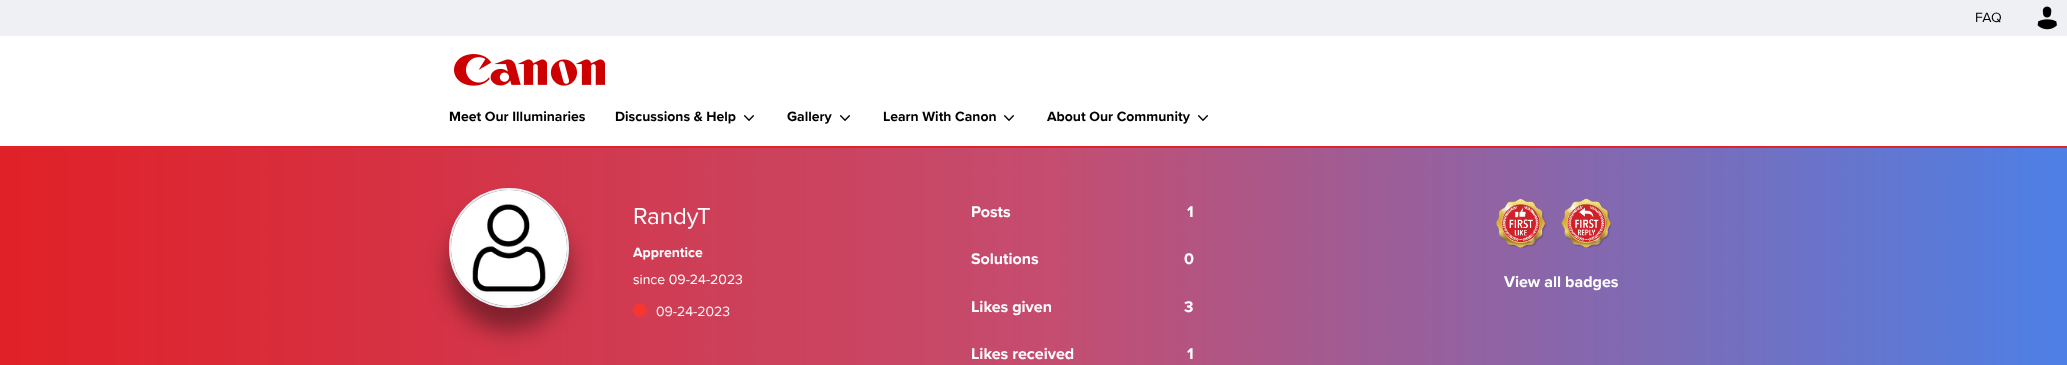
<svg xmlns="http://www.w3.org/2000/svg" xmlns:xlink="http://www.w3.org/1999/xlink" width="2067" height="365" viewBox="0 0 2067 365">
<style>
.cls-1{font:14px Proxima Nova;fill:#000000}
.cls-2{font:bold 14px Proxima Nova;fill:#000000}
.cls-3{font:24px Proxima Nova;fill:#ffffff}
.cls-4{font:bold 14px Proxima Nova;fill:#ffffff}
.cls-5{font:14px Proxima Nova;fill:#ffffff}
.cls-6{font:14px Proxima Nova;fill:#f8f8f8}
.cls-7{font:bold 16px Proxima Nova;fill:#ffffff}
</style>
<rect width="100%" height="100%" fill="#ffffff"/>
<rect fill="#eff0f3" x="0" y="0" width="2067" height="36"/>
<image xlink:href="image0.png" x="2037" y="6" width="20" height="24"/>
<image xlink:href="image1.png" x="454" y="54" width="151" height="32"/>
<rect fill="#e22128" x="0" y="146" width="2067" height="2"/>
<image xlink:href="image2.png" x="744" y="115" width="10" height="6"/>
<image xlink:href="image2.png" x="840" y="115" width="10" height="6"/>
<image xlink:href="image2.png" x="1004" y="115" width="10" height="6"/>
<image xlink:href="image2.png" x="1198" y="115" width="10" height="6"/>
<image xlink:href="image3.png" x="0" y="148" width="2067" height="217"/>
<rect fill="#000000" fill-opacity="0.4" filter="blur(11px)" x="449" y="210" width="120" height="120" rx="60"/>
<circle fill="#5d5d5d" stroke="#eff0f3" stroke-width="2" cx="509" cy="248" r="59"/>
<image xlink:href="image4.png" x="451" y="190" width="116" height="116"/>
<path fill="#f73631" d="M646 307C650.5 314.5 638.5 321.5 634 313.5C629.5 306 641 299 646 307Z"/>
<image xlink:href="image5.png" x="1496" y="198" width="50" height="50"/>
<image xlink:href="image6.png" x="1561" y="198" width="50" height="50"/>
<text class="cls-1" x="1975" y="22">FAQ</text>
<text class="cls-2" x="449" y="121">Meet Our Illuminaries</text>
<text class="cls-2" x="615" y="121">Discussions &amp; Help</text>
<text class="cls-2" x="787" y="121">Gallery</text>
<text class="cls-2" x="883" y="121">Learn With Canon</text>
<text class="cls-2" x="1047" y="121">About Our Community</text>
<text class="cls-3" x="633" y="224">RandyT</text>
<text class="cls-4" x="633" y="257">Apprentice</text>
<text class="cls-5" x="633" y="284">since 09-24-2023</text>
<text class="cls-6" x="656" y="316">09-24-2023</text>
<text class="cls-7" x="971" y="217">Posts</text>
<text class="cls-7" x="1187" y="217">1</text>
<text class="cls-7" x="971" y="264">Solutions</text>
<text class="cls-7" x="1184" y="264">0</text>
<text class="cls-7" x="971" y="312">Likes given</text>
<text class="cls-7" x="1184" y="312">3</text>
<text class="cls-7" x="971" y="359">Likes received</text>
<text class="cls-7" x="1187" y="359">1</text>
<text class="cls-7" x="1504" y="287">View all badges</text>
</svg>
